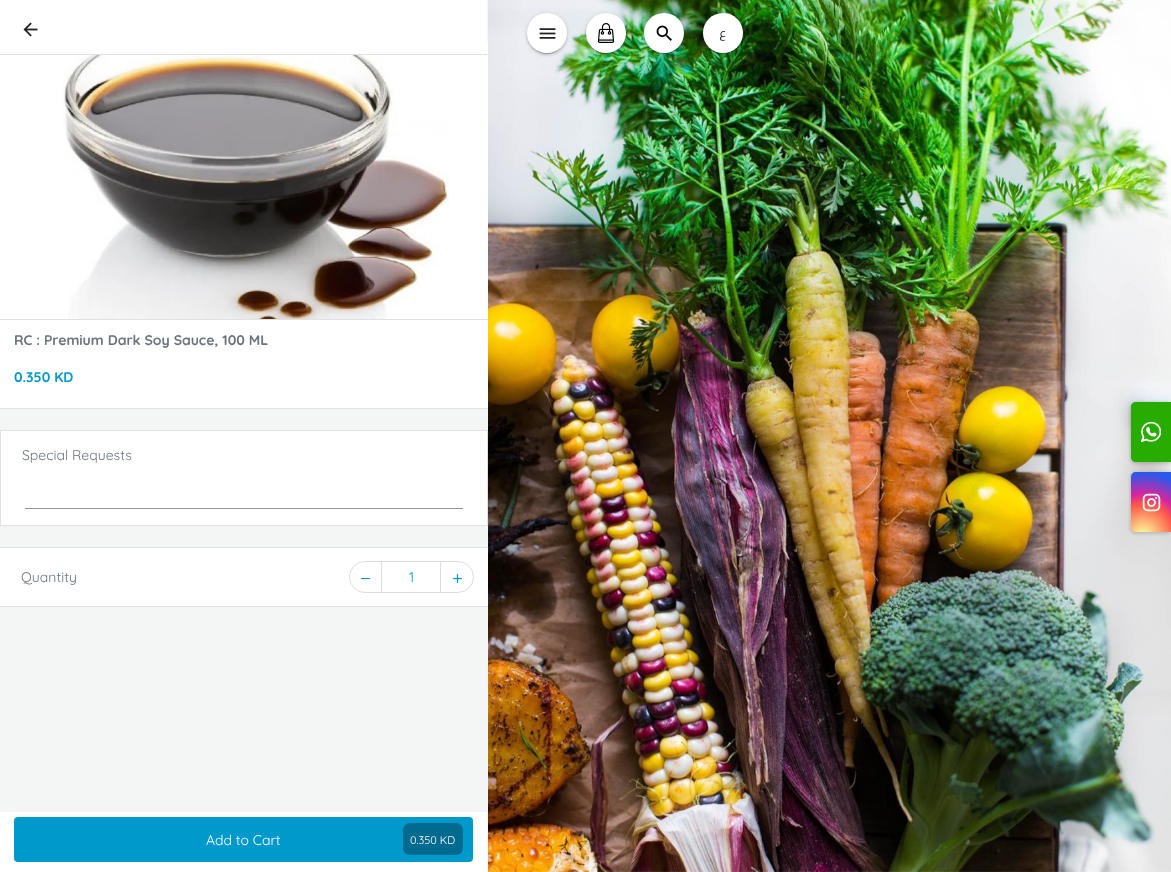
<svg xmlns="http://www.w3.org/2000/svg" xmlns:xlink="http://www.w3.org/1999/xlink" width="1171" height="872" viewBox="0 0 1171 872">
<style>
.cls-1{font:12px Cairo;direction:rtl;fill:#212121}
.cls-2{font:300 14px 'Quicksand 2';fill:#6c757d}
.cls-3{font:300 14px 'Quicksand 2';fill:#0099cc}
.cls-4{font:300 14px Quicksand;fill:#6c757d}
.cls-5{font:300 14px Quicksand;fill:#0099cc}
.cls-6{font:300 14px Quicksand;fill:#ffffff}
.cls-7{font:300 11px Quicksand;fill:#ffffff}
</style>
<defs>
<radialGradient id="g1" gradientUnits="userSpaceOnUse" cx="1143" cy="536" r="70"><stop offset="0" stop-color="#fdf497"/><stop offset="0.05" stop-color="#fdf497"/><stop offset="0.45" stop-color="#fd5949"/><stop offset="0.6" stop-color="#d6249f"/><stop offset="0.9" stop-color="#285aeb"/></radialGradient>
</defs>
<rect width="100%" height="100%" fill="#f4f5f5"/>
<image xlink:href="image0.png" x="488" y="0" width="683" height="872"/>
<rect fill="#000000" fill-opacity="0.12" filter="blur(2.5px)" x="527" y="14" width="40" height="40" rx="20"/>
<rect fill="#000000" fill-opacity="0.14" filter="blur(1px)" x="527" y="15" width="40" height="40" rx="20"/>
<rect fill="#000000" fill-opacity="0.2" filter="blur(0.5px)" x="529" y="18" width="36" height="36" rx="18"/>
<circle fill="#ffffff" cx="547" cy="33" r="20"/>
<image xlink:href="image1.png" x="539" y="28" width="17" height="11"/>
<rect fill="#000000" fill-opacity="0.12" filter="blur(2.5px)" x="586" y="14" width="40" height="40" rx="20"/>
<rect fill="#000000" fill-opacity="0.14" filter="blur(1px)" x="586" y="15" width="40" height="40" rx="20"/>
<rect fill="#000000" fill-opacity="0.2" filter="blur(0.5px)" x="588" y="18" width="36" height="36" rx="18"/>
<circle fill="#ffffff" cx="606" cy="33" r="20"/>
<image xlink:href="image2.png" x="597" y="23" width="18" height="20"/>
<rect fill="#000000" fill-opacity="0.12" filter="blur(2.5px)" x="644" y="14" width="40" height="40" rx="20"/>
<rect fill="#000000" fill-opacity="0.14" filter="blur(1px)" x="644" y="15" width="40" height="40" rx="20"/>
<rect fill="#000000" fill-opacity="0.2" filter="blur(0.5px)" x="646" y="18" width="36" height="36" rx="18"/>
<circle fill="#ffffff" cx="664" cy="33" r="20"/>
<image xlink:href="image3.png" x="656" y="25" width="16" height="16"/>
<rect fill="#000000" fill-opacity="0.12" filter="blur(2.5px)" x="703" y="14" width="40" height="40" rx="20"/>
<rect fill="#000000" fill-opacity="0.14" filter="blur(1px)" x="703" y="15" width="40" height="40" rx="20"/>
<rect fill="#000000" fill-opacity="0.2" filter="blur(0.5px)" x="705" y="18" width="36" height="36" rx="18"/>
<circle fill="#ffffff" cx="723" cy="33" r="20"/>
<rect fill="#ffffff" x="0" y="0" width="487" height="42"/>
<rect fill="#ffffff" x="0" y="42" width="488" height="277"/>
<rect fill="#dee2e6" x="0" y="54" width="487" height="1"/>
<image xlink:href="image4.png" x="23" y="22" width="15" height="15"/>
<image xlink:href="image5.png" x="62" y="55" width="387" height="264"/>
<rect fill="#ffffff" x="0" y="320" width="488" height="88"/>
<rect fill="#dee2e6" x="0" y="319" width="488" height="1"/>
<rect fill="#dee2e6" x="0" y="408" width="488" height="1"/>
<rect fill="#ffffff" stroke="#dee2e6" x="0.5" y="430.5" width="487" height="95"/>
<rect fill="#949494" x="25" y="508" width="438" height="1"/>
<rect fill="#ffffff" x="0" y="548" width="488" height="58"/>
<rect fill="#dee2e6" x="0" y="547" width="488" height="1"/>
<rect fill="#dee2e6" x="0" y="606" width="488" height="1"/>
<rect fill="none" stroke="#dedede" x="349.5" y="561.5" width="124" height="31" rx="15.5"/>
<rect fill="#0099cc" x="361" y="578" width="9" height="1"/>
<rect fill="#dedede" x="440" y="561" width="1" height="32"/>
<rect fill="#dedede" x="381" y="561" width="1" height="32"/>
<image xlink:href="image6.png" x="453" y="574" width="9" height="9"/>
<rect fill="#ffffff" x="0" y="812" width="487" height="60"/>
<rect fill="#0099cc" x="14" y="817" width="459" height="45" rx="4"/>
<rect fill="#006b8f" x="403" y="823" width="60" height="32" rx="7"/>
<rect fill="#000000" fill-opacity="0.15" filter="blur(1.5px)" x="1130" y="402" width="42" height="62" rx="6"/>
<path fill="#29ac00" d="M1136 402H1171V462H1136C1133 462 1131 460 1131 457V407C1131 404 1133 402 1136 402Z"/>
<image xlink:href="image7.png" x="1131" y="403" width="31" height="58"/>
<rect fill="#000000" fill-opacity="0.15" filter="blur(1.5px)" x="1130" y="472" width="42" height="62" rx="6"/>
<path fill="url(#g1)" d="M1136 472H1171V532H1136C1133 532 1131 530 1131 527V477C1131 474 1133 472 1136 472Z"/>
<image xlink:href="image8.png" x="1142" y="493" width="19" height="19"/>
<text class="cls-1" x="726" y="37">ع</text>
<text class="cls-2" x="14" y="345">RC : Premium Dark Soy Sauce, 100 ML</text>
<text class="cls-3" x="14" y="382">0.350 KD</text>
<text class="cls-4" x="22" y="460">Special Requests</text>
<text class="cls-4" x="21" y="582">Quantity</text>
<text class="cls-5" x="409" y="582">1</text>
<text class="cls-6" x="206" y="845">Add to Cart</text>
<text class="cls-7" x="410" y="844">0.350 KD</text>
</svg>
